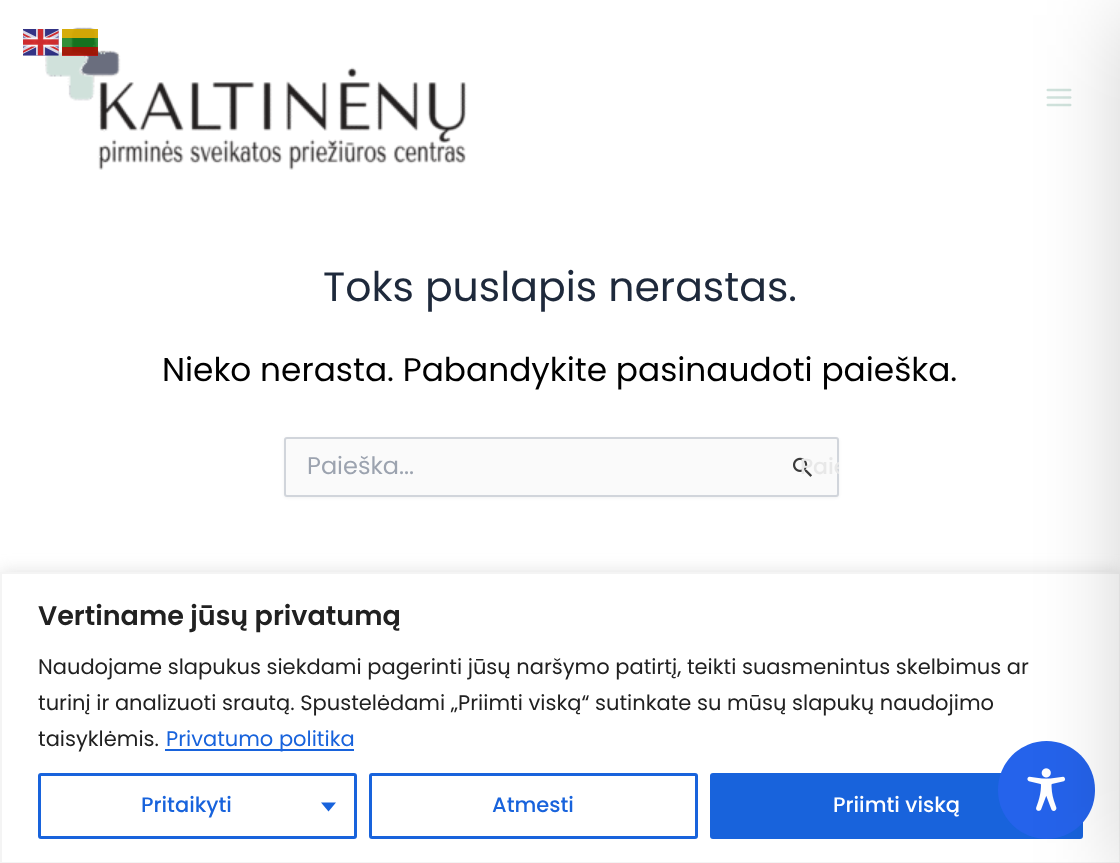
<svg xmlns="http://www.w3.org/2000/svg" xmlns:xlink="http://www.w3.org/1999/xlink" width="1120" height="863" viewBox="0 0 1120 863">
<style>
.cls-1{font:41px Poppins;fill:#1e293b}
.cls-2{font:32.8px Poppins;fill:#000000}
.cls-3{font:24px Poppins;fill:#9ca3af}
.cls-4{font:500 22px Poppins;fill:#e8e8e8}
.cls-5{font:600 27px Poppins;fill:#212121}
.cls-6{font:21px Poppins;fill:#212121}
.cls-7{font:21px Poppins;fill:#1863dc}
.cls-8{font:500 21px Poppins;fill:#1863dc}
.cls-9{font:500 21px Poppins;fill:#ffffff}
</style>
<defs>
<clipPath id="clip1"><rect x="771" y="437" width="68" height="60" rx="3"/></clipPath>
</defs>
<rect width="100%" height="100%" fill="#ffffff"/>
<image xlink:href="image1.png" x="45" y="27" width="422" height="143"/>
<image xlink:href="image0.png" x="23" y="29" width="36" height="27"/>
<rect fill="#007308" fill-opacity="0.8" x="62" y="29" width="36" height="26"/>
<rect fill="#ffb300" fill-opacity="0.8" x="62" y="29" width="36" height="9"/>
<rect fill="#bf0000" fill-opacity="0.8" x="62" y="47" width="36" height="9"/>
<image xlink:href="image2.png" x="1046" y="88" width="26" height="19"/>
<rect fill="#acabab" fill-opacity="0.3" filter="blur(7.5px)" x="0" y="570" width="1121" height="293"/>
<rect fill="#ffffff" stroke="#f4f4f4" stroke-width="2" x="1" y="573" width="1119" height="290"/>
<rect fill="#1863dc" stroke="#1863dc" stroke-width="3" x="711.5" y="774.5" width="370" height="63" rx="1.5"/>
<rect fill="#2563eb" x="998" y="741" width="97" height="98" rx="48.5"/>
<image xlink:href="image4.png" x="1027" y="768" width="39" height="43"/>
<rect fill="#000000" fill-opacity="0.2" filter="blur(45px)" x="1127" y="15" width="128" height="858"/>
<rect fill="#000000" fill-opacity="0.05" filter="blur(1.5px)" x="284" y="438" width="555" height="60" rx="3"/>
<rect fill="#fafafa" stroke="#d1d5db" stroke-width="2" x="285" y="438" width="553" height="58" rx="2"/>
<image xlink:href="image3.png" x="793" y="457" width="19" height="20"/>
<rect fill="#1863dc" x="165" y="749" width="189" height="2"/>
<rect fill="none" stroke="#1863dc" stroke-width="3" x="39.5" y="774.5" width="316" height="63" rx="1.5"/>
<path fill="#1863dc" d="M321 802.5H336L328.5 811.5Z"/>
<rect fill="none" stroke="#1863dc" stroke-width="3" x="370.5" y="774.5" width="326" height="63" rx="1.5"/>
<text class="cls-1" x="323" y="301">Toks puslapis nerastas.</text>
<text class="cls-2" x="162" y="381">Nieko nerasta. Pabandykite pasinaudoti paieška.</text>
<text class="cls-3" x="307" y="474">Paieška...</text>
<g clip-path="url(#clip1)">
<text class="cls-4" x="800" y="474">Paie</text>
</g>
<text class="cls-5" x="38" y="625">Vertiname jūsų privatumą</text>
<text class="cls-6"><tspan x="38" y="674">Naudojame slapukus siekdami pagerinti jūsų naršymo patirtį, teikti suasmenintus skelbimus ar</tspan><tspan x="38" y="710">turinį ir analizuoti srautą. Spustelėdami „Priimti viską“ sutinkate su mūsų slapukų naudojimo</tspan><tspan x="38" y="746">taisyklėmis.</tspan></text>
<text class="cls-7" x="166" y="746">Privatumo politika</text>
<text class="cls-8" x="141" y="812">Pritaikyti</text>
<text class="cls-8" x="492" y="812">Atmesti</text>
<text class="cls-9" x="833" y="812">Priimti viską</text>
</svg>
